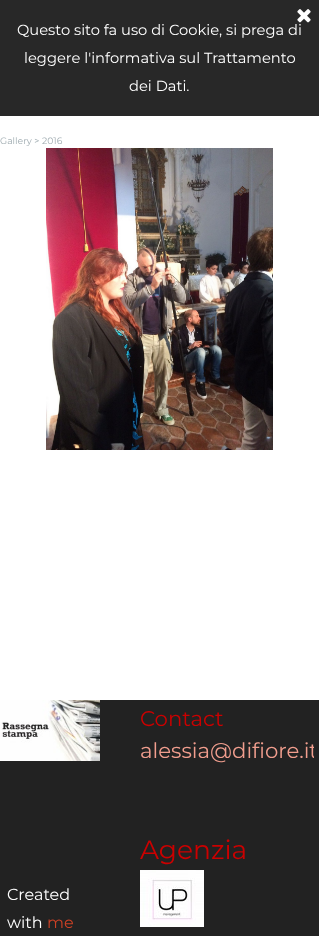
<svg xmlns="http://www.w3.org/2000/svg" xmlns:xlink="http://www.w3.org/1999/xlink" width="319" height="936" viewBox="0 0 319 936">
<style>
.cls-1{font:14.7px Montserrat;fill:#ffffff}
.cls-2{font:9.25px Montserrat;fill:#9fabb0}
.cls-3{font:21.25px Montserrat;fill:#cc0000}
.cls-4{font:21.25px Montserrat;fill:#f19e8e}
.cls-5{font:26.5px Montserrat;fill:#cc0000}
.cls-6{font:16px Montserrat;fill:#ffffff}
.cls-7{font:16px Montserrat;fill:#cc4125}
</style>
<defs>
<clipPath id="clip1"><rect x="140" y="702" width="174" height="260"/></clipPath>
</defs>
<rect width="100%" height="100%" fill="#ffffff"/>
<rect fill="#282828" x="0" y="0" width="319" height="116"/>
<image xlink:href="image0.png" x="297" y="9" width="14" height="14"/>
<image xlink:href="image1.png" x="46" y="148" width="227" height="302"/>
<rect fill="#222222" x="0" y="700" width="319" height="236"/>
<image xlink:href="image2.png" x="0" y="700" width="100" height="61"/>
<image xlink:href="image3.png" x="140" y="870" width="64" height="57"/>
<text class="cls-1" x="17" y="35">Questo sito fa uso di Cookie, si prega di</text>
<text class="cls-1" x="24" y="63">leggere l'informativa sul Trattamento</text>
<text class="cls-1" x="129" y="91">dei Dati.</text>
<text class="cls-2" x="0" y="144">Gallery &gt; 2016</text>
<text class="cls-3" x="140" y="726">Contact</text>
<g clip-path="url(#clip1)">
<text class="cls-4" x="140" y="758">alessia@difiore.it</text>
</g>
<text class="cls-5" x="140" y="859">Agenzia</text>
<text class="cls-6"><tspan x="7" y="900">Created</tspan><tspan x="7" y="928">with</tspan></text>
<text class="cls-7" x="47" y="928">me</text>
</svg>
